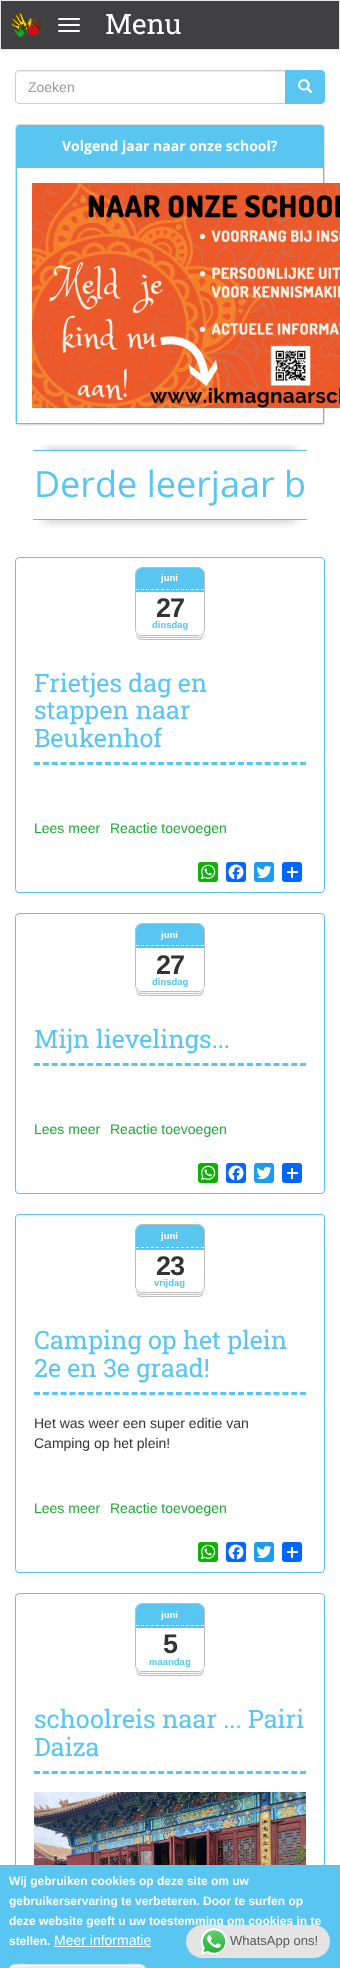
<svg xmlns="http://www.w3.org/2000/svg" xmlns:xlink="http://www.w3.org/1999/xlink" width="340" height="1968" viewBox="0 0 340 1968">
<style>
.cls-1{font:28px Roboto Slab;fill:#ffffff}
.cls-2{font:14px Liberation Sans;fill:#999999}
.cls-3{font:bold 14px Open Sans;fill:#ffffff}
.cls-4{font:36px Open Sans;fill:#59c6f2}
.cls-5{font:bold 9.5px Liberation Sans;fill:#ffffff}
.cls-6{font:bold 27px Liberation Sans;letter-spacing:-1px;fill:#333333}
.cls-7{font:bold 9.5px Liberation Sans;fill:#59c6f2}
.cls-8{font:25.25px Roboto Slab;fill:#59c6f2}
.cls-9{font:14px Liberation Sans;fill:#23a638}
.cls-10{font:14px Liberation Sans;fill:#333333}
.cls-11{font:bold 12px Liberation Sans;fill:#ffffff}
.cls-12{font:13px Liberation Sans;fill:#5b5b5b}
.cls-13{font:14px Liberation Sans;fill:#ffffff}
</style>
<defs>
<clipPath id="clip1"><rect x="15" y="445" width="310" height="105" rx="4"/></clipPath>
<clipPath id="clip2"><rect x="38" y="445" width="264" height="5"/></clipPath>
<clipPath id="clip3"><rect x="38" y="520" width="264" height="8"/></clipPath>
<clipPath id="clip4"><rect x="9" y="1964" width="137" height="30" rx="6"/></clipPath>
<linearGradient id="g1" gradientUnits="userSpaceOnUse" x1="78" y1="1965" x2="78" y2="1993"><stop offset="0.05" stop-color="#ededed"/><stop offset="1" stop-color="#dfdfdf"/></linearGradient>
</defs>
<rect width="100%" height="100%" fill="#ffffff"/>
<rect fill="none" stroke="#e7e7e7" x="0.5" y="0.5" width="339" height="49"/>
<rect fill="#404042" x="1" y="1" width="338" height="48"/>
<image xlink:href="image0.png" x="11" y="13" width="33" height="25"/>
<rect fill="#ffffff" x="58" y="18" width="22" height="2" rx="1"/>
<rect fill="#ffffff" x="58" y="24" width="22" height="2" rx="1"/>
<rect fill="#ffffff" x="58" y="30" width="22" height="2" rx="1"/>
<path fill="#ececec" d="M19 72H285V71H19C17 71 16 72 16 74V75C16 73 17 72 19 72Z"/>
<path fill="none" stroke="#cccccc" d="M19 70.5H285.5V103.5H19C17 103.5 15.5 102 15.5 100V74C15.5 72 17 70.5 19 70.5Z"/>
<path fill="#59c6f2" stroke="#59c6f2" d="M285.5 70.5H321C323 70.5 324.5 72 324.5 74V100C324.5 102 323 103.5 321 103.5H285.5Z"/>
<image xlink:href="image1.png" x="298" y="79" width="15" height="14"/>
<rect fill="#000000" fill-opacity="0.05" filter="blur(0.5px)" x="15" y="125" width="310" height="301" rx="4"/>
<rect fill="#ffffff" stroke="#dddddd" x="15.5" y="124.5" width="309" height="300" rx="3.5"/>
<path fill="#59c6f2" d="M19 125H321C322.5 125 324 126.5 324 128V167H16V128C16 126.5 17.5 125 19 125Z"/>
<rect fill="none" stroke="#59c6f2" x="16.5" y="167.5" width="307" height="256"/>
<image xlink:href="image2.png" x="32" y="183" width="308" height="225"/>
<g clip-path="url(#clip1)">
<g clip-path="url(#clip2)">
<rect fill="#000000" fill-opacity="0.28" filter="blur(5.5px)" x="44" y="450" width="252" height="48"/>
</g>
</g>
<g clip-path="url(#clip3)">
<rect fill="#000000" fill-opacity="0.28" filter="blur(5.5px)" x="44" y="472" width="252" height="48"/>
</g>
<rect fill="#59c6f2" x="33" y="450" width="274" height="1"/>
<rect fill="#59c6f2" x="33" y="519" width="274" height="1"/>
<rect fill="none" stroke="#59c6f2" x="15.5" y="557.5" width="309" height="335" rx="3.5"/>
<rect fill="none" stroke="#bdbdbd" x="135.5" y="567.5" width="69" height="68" rx="6.5"/>
<path fill="#bdbdbd" d="M136 629C136 642 139 640 151 640H189C201 640 204 642 204 629C204 632 201 635 198 635H142C139 635 136 632 136 629Z"/>
<path fill="#ffffff" d="M136 629C136 641 141 639 151 639H189C199 639 204 641 204 629C204 632 201 635 198 635H142C139 635 136 632 136 629Z"/>
<path fill="#bdbdbd" d="M136 629C136 640 142 638 151 638H189C198 638 204 640 204 629C204 632 201 635 198 635H142C139 635 136 632 136 629Z"/>
<path fill="#ffffff" d="M136 629C136 639 143 637 151 637H189C197 637 204 639 204 629C204 632 201 635 198 635H142C139 635 136 632 136 629Z"/>
<path fill="#bdbdbd" d="M136 629C136 638 145 636 151 636H189C195 636 204 638 204 629C204 632 201 635 198 635H142C139 635 136 632 136 629Z"/>
<rect fill="#ffffff" x="136" y="568" width="68" height="67" rx="6"/>
<rect fill="#59c6f2" x="136" y="590" width="68" height="2"/>
<path fill="#59c6f2" d="M142 568H198C201.5 568 204 570.5 204 574V590H136V574C136 570.5 138.5 568 142 568Z"/>
<path fill="none" stroke="#ffffff" stroke-dasharray="3 2" d="M136 589.5H204"/>
<path fill="none" stroke="#59c6f2" stroke-width="3" stroke-dasharray="6 2.87" d="M34 763.5H306"/>
<rect fill="#12af0a" x="198" y="862" width="20" height="20" rx="3"/>
<image xlink:href="image3.png" x="200" y="864" width="16" height="16"/>
<rect fill="#0866ff" x="226" y="862" width="20" height="20" rx="3"/>
<image xlink:href="image4.png" x="228" y="864" width="16" height="16"/>
<rect fill="#1d9bf0" x="254" y="862" width="20" height="20" rx="3"/>
<image xlink:href="image5.png" x="256" y="865" width="16" height="14"/>
<rect fill="#0166ff" x="282" y="862" width="20" height="20" rx="3"/>
<rect fill="#ffffff" x="291" y="867" width="2" height="11"/>
<rect fill="#ffffff" x="287" y="871" width="11" height="2"/>
<rect fill="none" stroke="#59c6f2" x="15.5" y="913.5" width="309" height="280" rx="3.5"/>
<rect fill="none" stroke="#bdbdbd" x="135.5" y="923.5" width="69" height="68" rx="6.5"/>
<path fill="#bdbdbd" d="M136 985C136 998 139 996 151 996H189C201 996 204 998 204 985C204 988 201 991 198 991H142C139 991 136 988 136 985Z"/>
<path fill="#ffffff" d="M136 985C136 997 141 995 151 995H189C199 995 204 997 204 985C204 988 201 991 198 991H142C139 991 136 988 136 985Z"/>
<path fill="#bdbdbd" d="M136 985C136 996 142 994 151 994H189C198 994 204 996 204 985C204 988 201 991 198 991H142C139 991 136 988 136 985Z"/>
<path fill="#ffffff" d="M136 985C136 995 143 993 151 993H189C197 993 204 995 204 985C204 988 201 991 198 991H142C139 991 136 988 136 985Z"/>
<path fill="#bdbdbd" d="M136 985C136 994 145 992 151 992H189C195 992 204 994 204 985C204 988 201 991 198 991H142C139 991 136 988 136 985Z"/>
<rect fill="#ffffff" x="136" y="924" width="68" height="67" rx="6"/>
<rect fill="#59c6f2" x="136" y="946" width="68" height="2"/>
<path fill="#59c6f2" d="M142 924H198C201.5 924 204 926.5 204 930V946H136V930C136 926.5 138.5 924 142 924Z"/>
<path fill="none" stroke="#ffffff" stroke-dasharray="3 2" d="M136 945.5H204"/>
<path fill="none" stroke="#59c6f2" stroke-width="3" stroke-dasharray="6 2.87" d="M34 1064.5H306"/>
<rect fill="#12af0a" x="198" y="1163" width="20" height="20" rx="3"/>
<image xlink:href="image3.png" x="200" y="1165" width="16" height="16"/>
<rect fill="#0866ff" x="226" y="1163" width="20" height="20" rx="3"/>
<image xlink:href="image4.png" x="228" y="1165" width="16" height="16"/>
<rect fill="#1d9bf0" x="254" y="1163" width="20" height="20" rx="3"/>
<image xlink:href="image5.png" x="256" y="1166" width="16" height="14"/>
<rect fill="#0166ff" x="282" y="1163" width="20" height="20" rx="3"/>
<rect fill="#ffffff" x="291" y="1168" width="2" height="11"/>
<rect fill="#ffffff" x="287" y="1172" width="11" height="2"/>
<rect fill="none" stroke="#59c6f2" x="15.5" y="1214.5" width="309" height="358" rx="3.5"/>
<rect fill="none" stroke="#bdbdbd" x="135.5" y="1224.5" width="69" height="68" rx="6.5"/>
<path fill="#bdbdbd" d="M136 1286C136 1299 139 1297 151 1297H189C201 1297 204 1299 204 1286C204 1289 201 1292 198 1292H142C139 1292 136 1289 136 1286Z"/>
<path fill="#ffffff" d="M136 1286C136 1298 141 1296 151 1296H189C199 1296 204 1298 204 1286C204 1289 201 1292 198 1292H142C139 1292 136 1289 136 1286Z"/>
<path fill="#bdbdbd" d="M136 1286C136 1297 142 1295 151 1295H189C198 1295 204 1297 204 1286C204 1289 201 1292 198 1292H142C139 1292 136 1289 136 1286Z"/>
<path fill="#ffffff" d="M136 1286C136 1296 143 1294 151 1294H189C197 1294 204 1296 204 1286C204 1289 201 1292 198 1292H142C139 1292 136 1289 136 1286Z"/>
<path fill="#bdbdbd" d="M136 1286C136 1295 145 1293 151 1293H189C195 1293 204 1295 204 1286C204 1289 201 1292 198 1292H142C139 1292 136 1289 136 1286Z"/>
<rect fill="#ffffff" x="136" y="1225" width="68" height="67" rx="6"/>
<rect fill="#59c6f2" x="136" y="1248" width="68" height="2"/>
<path fill="#59c6f2" d="M142 1225H198C201.5 1225 204 1227.5 204 1231V1248H136V1231C136 1227.5 138.5 1225 142 1225Z"/>
<path fill="none" stroke="#ffffff" stroke-dasharray="3 2" d="M136 1247.5H204"/>
<path fill="none" stroke="#59c6f2" stroke-width="3" stroke-dasharray="6 2.87" d="M34 1393.5H306"/>
<rect fill="#12af0a" x="198" y="1542" width="20" height="20" rx="3"/>
<image xlink:href="image3.png" x="200" y="1544" width="16" height="16"/>
<rect fill="#0866ff" x="226" y="1542" width="20" height="20" rx="3"/>
<image xlink:href="image4.png" x="228" y="1544" width="16" height="16"/>
<rect fill="#1d9bf0" x="254" y="1542" width="20" height="20" rx="3"/>
<image xlink:href="image5.png" x="256" y="1545" width="16" height="14"/>
<rect fill="#0166ff" x="282" y="1542" width="20" height="20" rx="3"/>
<rect fill="#ffffff" x="291" y="1547" width="2" height="11"/>
<rect fill="#ffffff" x="287" y="1551" width="11" height="2"/>
<rect fill="none" stroke="#59c6f2" x="15.5" y="1593.5" width="309" height="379" rx="3.5"/>
<rect fill="none" stroke="#bdbdbd" x="135.5" y="1603.5" width="69" height="68" rx="6.5"/>
<path fill="#bdbdbd" d="M136 1665C136 1678 139 1676 151 1676H189C201 1676 204 1678 204 1665C204 1668 201 1671 198 1671H142C139 1671 136 1668 136 1665Z"/>
<path fill="#ffffff" d="M136 1665C136 1677 141 1675 151 1675H189C199 1675 204 1677 204 1665C204 1668 201 1671 198 1671H142C139 1671 136 1668 136 1665Z"/>
<path fill="#bdbdbd" d="M136 1665C136 1676 142 1674 151 1674H189C198 1674 204 1676 204 1665C204 1668 201 1671 198 1671H142C139 1671 136 1668 136 1665Z"/>
<path fill="#ffffff" d="M136 1665C136 1675 143 1673 151 1673H189C197 1673 204 1675 204 1665C204 1668 201 1671 198 1671H142C139 1671 136 1668 136 1665Z"/>
<path fill="#bdbdbd" d="M136 1665C136 1674 145 1672 151 1672H189C195 1672 204 1674 204 1665C204 1668 201 1671 198 1671H142C139 1671 136 1668 136 1665Z"/>
<rect fill="#ffffff" x="136" y="1604" width="68" height="67" rx="6"/>
<rect fill="#59c6f2" x="136" y="1626" width="68" height="2"/>
<path fill="#59c6f2" d="M142 1604H198C201.5 1604 204 1606.5 204 1610V1626H136V1610C136 1606.5 138.5 1604 142 1604Z"/>
<path fill="none" stroke="#ffffff" stroke-dasharray="3 2" d="M136 1625.5H204"/>
<path fill="none" stroke="#59c6f2" stroke-width="3" stroke-dasharray="6 2.87" d="M34 1772.5H306"/>
<image xlink:href="image6.png" x="34" y="1792" width="272" height="73"/>
<rect fill="#59c6f2" x="0" y="1865" width="340" height="103"/>
<rect fill="#ffffff" x="54" y="1946" width="97" height="1"/>
<g clip-path="url(#clip4)">
<rect fill="url(#g1)" x="9" y="1965" width="137" height="3"/>
</g>
<path fill="#ffffff" d="M15 1966H140C143 1966 145 1968 145 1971C145 1960 123 1965 119 1965H36C32 1965 10 1960 10 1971C10 1968 12 1966 15 1966Z"/>
<rect fill="none" stroke="#dcdcdc" x="9.5" y="1964.5" width="136" height="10" rx="5.5"/>
<text class="cls-1" x="105" y="34">Menu</text>
<text class="cls-2" x="28" y="92">Zoeken</text>
<text class="cls-3" x="62" y="151">Volgend jaar naar onze school?</text>
<text class="cls-4" x="34" y="497">Derde leerjaar b</text>
<text class="cls-5" x="161" y="581">juni</text>
<text class="cls-6" x="156" y="617">27</text>
<text class="cls-7" x="152" y="628">dinsdag</text>
<text class="cls-8"><tspan x="34" y="692">Frietjes dag en</tspan><tspan x="34" y="719">stappen naar</tspan><tspan x="34" y="747">Beukenhof</tspan></text>
<text class="cls-9" x="34" y="833">Lees meer</text>
<text class="cls-9" x="110" y="833">Reactie toevoegen</text>
<text class="cls-5" x="161" y="938">juni</text>
<text class="cls-6" x="156" y="974">27</text>
<text class="cls-7" x="152" y="985">dinsdag</text>
<text class="cls-8" x="34" y="1048">Mijn lievelings...</text>
<text class="cls-9" x="34" y="1134">Lees meer</text>
<text class="cls-9" x="110" y="1134">Reactie toevoegen</text>
<text class="cls-5" x="161" y="1239">juni</text>
<text class="cls-6" x="156" y="1275">23</text>
<text class="cls-7" x="154" y="1286">vrijdag</text>
<text class="cls-8"><tspan x="34" y="1349">Camping op het plein</tspan><tspan x="34" y="1377">2e en 3e graad!</tspan></text>
<text class="cls-10"><tspan x="34" y="1428">Het was weer een super editie van</tspan><tspan x="34" y="1448">Camping op het plein!</tspan></text>
<text class="cls-9" x="34" y="1513">Lees meer</text>
<text class="cls-9" x="110" y="1513">Reactie toevoegen</text>
<text class="cls-5" x="161" y="1618">juni</text>
<text class="cls-6" x="163" y="1653">5</text>
<text class="cls-7" x="149" y="1665">maandag</text>
<text class="cls-8"><tspan x="34" y="1728">schoolreis naar ... Pairi</tspan><tspan x="34" y="1756">Daiza</tspan></text>
<text class="cls-11"><tspan x="9" y="1885">Wij gebruiken cookies op deze site om uw</tspan><tspan x="9" y="1905">gebruikerservaring te verbeteren. Door te surfen op</tspan><tspan x="9" y="1925">deze website geeft u uw toestemming om cookies in te</tspan></text>
<rect fill="#e4e4e4" x="186" y="1925" width="144" height="33" rx="16.5"/>
<text class="cls-12" x="230" y="1945">WhatsApp ons!</text>
<image xlink:href="image7.png" x="200" y="1928" width="28" height="28"/>
<text class="cls-11" x="9" y="1945">stellen.</text>
<text class="cls-13" x="54" y="1945">Meer informatie</text>
</svg>
